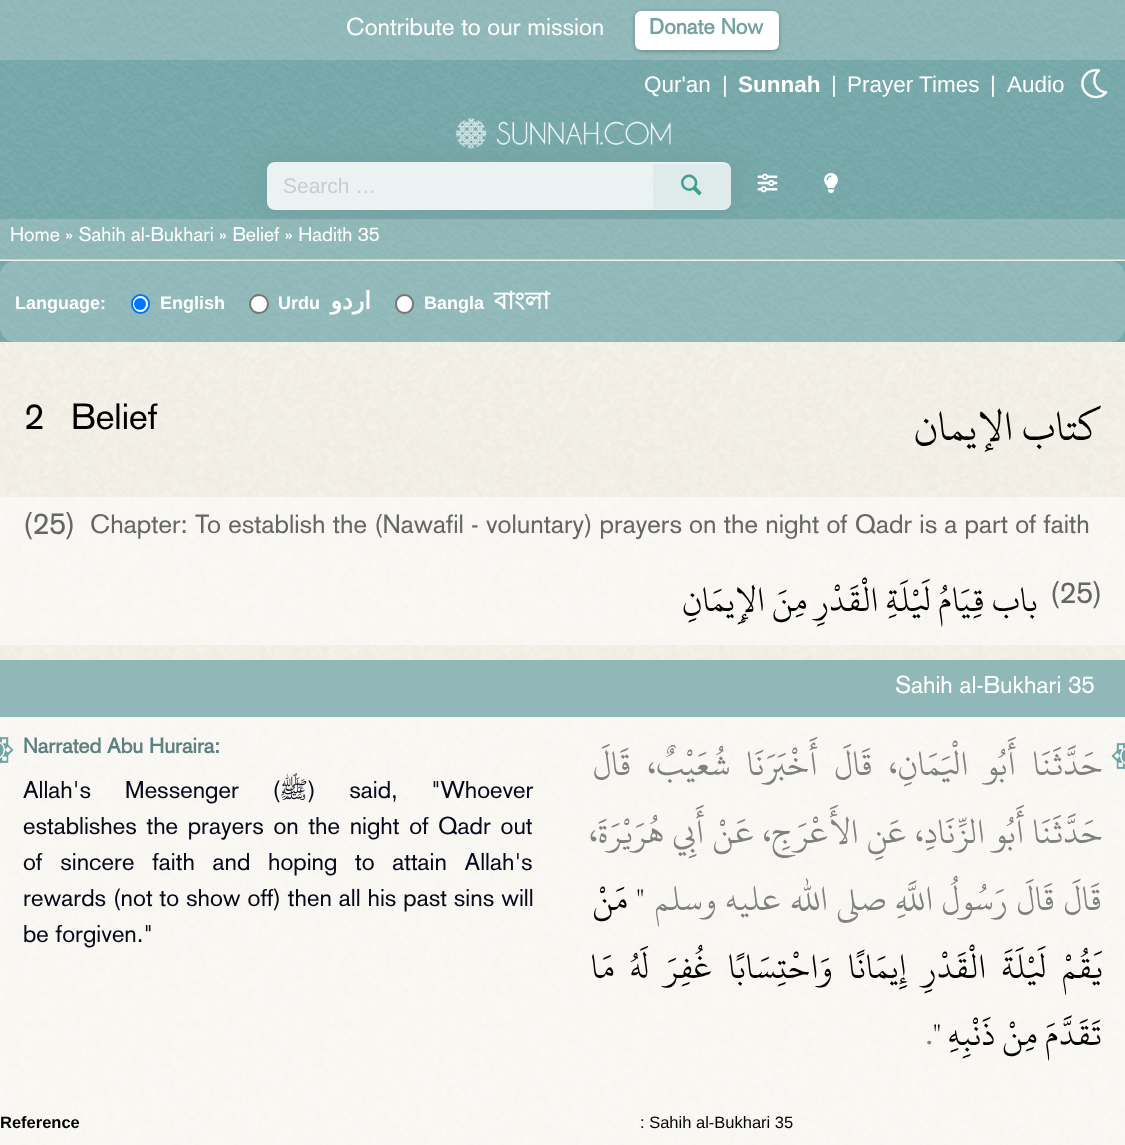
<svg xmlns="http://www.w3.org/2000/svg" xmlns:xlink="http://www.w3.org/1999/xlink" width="1125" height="1145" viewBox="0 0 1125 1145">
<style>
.cls-1{font:24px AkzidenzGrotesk;fill:#ffffff}
.cls-2{font:bold 21.5px AkzidenzGrotesk;fill:#75a1a1}
.cls-3{font:22.5px Liberation Sans;fill:#ffffff}
.cls-4{font:bold 22.5px Liberation Sans;fill:#ffffff}
.cls-5{font:21px Liberation Sans;fill:#cccccc}
.cls-6{font:26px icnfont;fill:#3ba08f}
.cls-7{font:19.5px AkzidenzGrotesk;fill:#ffffff}
.cls-8{font:bold 18px Liberation Sans;fill:#ffffff}
.cls-9{font:bold 24px DejaVu Sans;direction:rtl;fill:#ffffff}
.cls-10{font:bold 24px Lohit Bengali;fill:#ffffff}
.cls-11{font:36px AkzidenzGrotesk;fill:#000000}
.cls-12{font:45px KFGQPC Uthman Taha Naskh;direction:rtl;fill:#000000}
.cls-13{font:30px AkzidenzGrotesk;fill:#666666}
.cls-14{font:26px AkzidenzGrotesk;fill:#666666}
.cls-15{font:37.5px KFGQPC Uthman Taha Naskh;direction:rtl;fill:#000000}
.cls-16{font:bold 21px AkzidenzGrotesk;fill:#5d8080}
.cls-17{font:24px AkzidenzGrotesk;fill:#08081a}
.cls-18{font:24px Lateef;direction:rtl;fill:#08081a}
.cls-19{font:37.5px KFGQPC Uthman Taha Naskh;direction:rtl;fill:#808080}
.cls-20{font:bold 16.5px Liberation Sans;fill:#000000}
.cls-21{font:16.5px Liberation Sans;fill:#000000}
</style>
<defs>
<clipPath id="clip1"><path d="M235 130H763V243H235ZM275 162H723C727.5 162 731 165.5 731 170V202C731 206.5 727.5 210 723 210H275C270.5 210 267 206.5 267 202V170C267 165.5 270.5 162 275 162Z" clip-rule="evenodd"/></clipPath>
</defs>
<rect width="100%" height="100%" fill="#ffffff"/>
<image xlink:href="image0.png" x="0" y="259" width="1125" height="886"/>
<image xlink:href="image1.png" x="0" y="0" width="1125" height="260"/>
<rect fill="#fbfaf8" fill-opacity="0.2" x="0" y="0" width="1125" height="60"/>
<rect fill="#000000" fill-opacity="0.3" filter="blur(2px)" x="635" y="12" width="144" height="39" rx="6"/>
<rect fill="#ffffff" x="635" y="11" width="144" height="39" rx="6"/>
<image xlink:href="image2.png" x="1081" y="69" width="27" height="30"/>
<image xlink:href="image3.png" x="456" y="118" width="215" height="31"/>
<image xlink:href="image4.png" x="757" y="173" width="21" height="20"/>
<g clip-path="url(#clip1)">
<rect fill="#75a1a1" filter="blur(9px)" x="263" y="158" width="472" height="57" rx="12"/>
</g>
<rect fill="#ffffff" fill-opacity="0.85" x="267" y="162" width="464" height="48" rx="8"/>
<path fill="#deebea" d="M653 164H723C727.5 164 731 167.5 731 172V201C731 205.5 727.5 209 723 209H653Z"/>
<image xlink:href="image5.png" x="824" y="173" width="14" height="20"/>
<rect fill="#fbfaf8" fill-opacity="0.2" x="0" y="219" width="1125" height="41"/>
<image xlink:href="image6.png" x="0" y="261" width="1125" height="81"/>
<rect fill="#ffffff" stroke="#0075ff" stroke-width="2" x="132" y="295" width="17" height="18" rx="8.5"/>
<circle fill="#0075ff" cx="140" cy="304" r="6"/>
<circle fill="#ffffff" stroke="#767676" stroke-width="2" cx="259" cy="304" r="9"/>
<rect fill="#ffffff" stroke="#767676" stroke-width="2" x="396" y="295" width="17" height="18" rx="8.5"/>
<rect fill="#ffffff" fill-opacity="0.5" x="0" y="497" width="1125" height="148"/>
<rect fill="#ffffff" fill-opacity="0.5" x="0" y="717" width="1125" height="428"/>
<rect fill="#90b8b9" x="0" y="660" width="1125" height="57"/>
<image xlink:href="image7.png" x="0" y="736" width="14" height="28"/>
<image xlink:href="image8.png" x="1111" y="742" width="14" height="28"/>
<text class="cls-1" x="346" y="35">Contribute to our mission</text>
<text class="cls-2" x="649" y="34">Donate Now</text>
<text class="cls-3" x="644" y="92">Qur'an</text>
<text class="cls-3" x="722" y="92">|</text>
<text class="cls-4" x="738" y="92">Sunnah</text>
<text class="cls-3" x="831" y="92">|</text>
<text class="cls-3" x="847" y="92">Prayer Times</text>
<text class="cls-3" x="990" y="92">|</text>
<text class="cls-3" x="1007" y="92">Audio</text>
<text class="cls-5" x="283" y="193">Search …</text>
<text class="cls-6" x="681" y="194">l</text>
<text class="cls-7" x="10" y="241">Home » Sahih al-Bukhari » Belief » Hadith 35</text>
<text class="cls-8" x="15" y="309">Language:</text>
<text class="cls-8" x="160" y="309">English</text>
<text class="cls-8" x="278" y="309">Urdu</text>
<text class="cls-9" x="371" y="309">اردو</text>
<text class="cls-8" x="424" y="309">Bangla</text>
<text class="cls-10" x="494" y="309">বাংলা</text>
<text class="cls-11" x="24" y="429">2</text>
<text class="cls-11" x="71" y="429">Belief</text>
<text class="cls-12" x="1101" y="440">كتاب الإيمان</text>
<text class="cls-13" x="23" y="534">(25)</text>
<text class="cls-14" x="90" y="533">Chapter: To establish the (Nawafil - voluntary) prayers on the night of Qadr is a part of faith</text>
<text class="cls-15" x="1038" y="611">باب قِيَامُ لَيْلَةِ الْقَدْرِ مِنَ الإِيمَانِ</text>
<text class="cls-13" x="1050" y="603">(25)</text>
<text class="cls-1" x="895" y="693">Sahih al-Bukhari 35</text>
<text class="cls-16" x="23" y="753">Narrated Abu Huraira:</text>
<text class="cls-17" x="23" y="798" word-spacing="27">Allah's Messenger (</text>
<text class="cls-18" x="308" y="798">ﷺ</text>
<text class="cls-17" x="308" y="798" word-spacing="27">) said, "Whoever</text>
<text class="cls-17" x="23" y="834" word-spacing="3">establishes the prayers on the night of</text>
<text class="cls-17" x="438" y="834" word-spacing="3">Qadr out</text>
<text class="cls-17"><tspan x="23" y="870" word-spacing="11">of sincere faith and hoping to attain Allah's</tspan><tspan x="23" y="906" word-spacing="0.25">rewards (not to show off) then all his past sins will</tspan><tspan x="23" y="942">be forgiven."</tspan></text>
<text class="cls-19"><tspan x="1103" y="775" word-spacing="9.25">حَدَّثَنَا أَبُو الْيَمَانِ، قَالَ أَخْبَرَنَا شُعَيْبٌ، قَالَ</tspan><tspan x="1103" y="843" word-spacing="1">حَدَّثَنَا أَبُو الزِّنَادِ، عَنِ الأَعْرَجِ، عَنْ أَبِي هُرَيْرَةَ،</tspan></text>
<text class="cls-15" x="644" y="910" word-spacing="1">" مَنْ</text>
<text class="cls-19" x="1102" y="910" word-spacing="1.25">قَالَ قَالَ رَسُولُ اللَّهِ صلى الله عليه وسلم </text>
<text class="cls-15" x="1103" y="978" word-spacing="8">يَقُمْ لَيْلَةَ الْقَدْرِ إِيمَانًا وَاحْتِسَابًا غُفِرَ لَهُ مَا</text>
<text class="cls-19" x="933" y="1045">.</text>
<text class="cls-15" x="1102" y="1045">تَقَدَّمَ مِنْ ذَنْبِهِ "</text>
<text class="cls-20" x="0" y="1128">Reference</text>
<text class="cls-21" x="640" y="1128">: Sahih al-Bukhari 35</text>
</svg>
